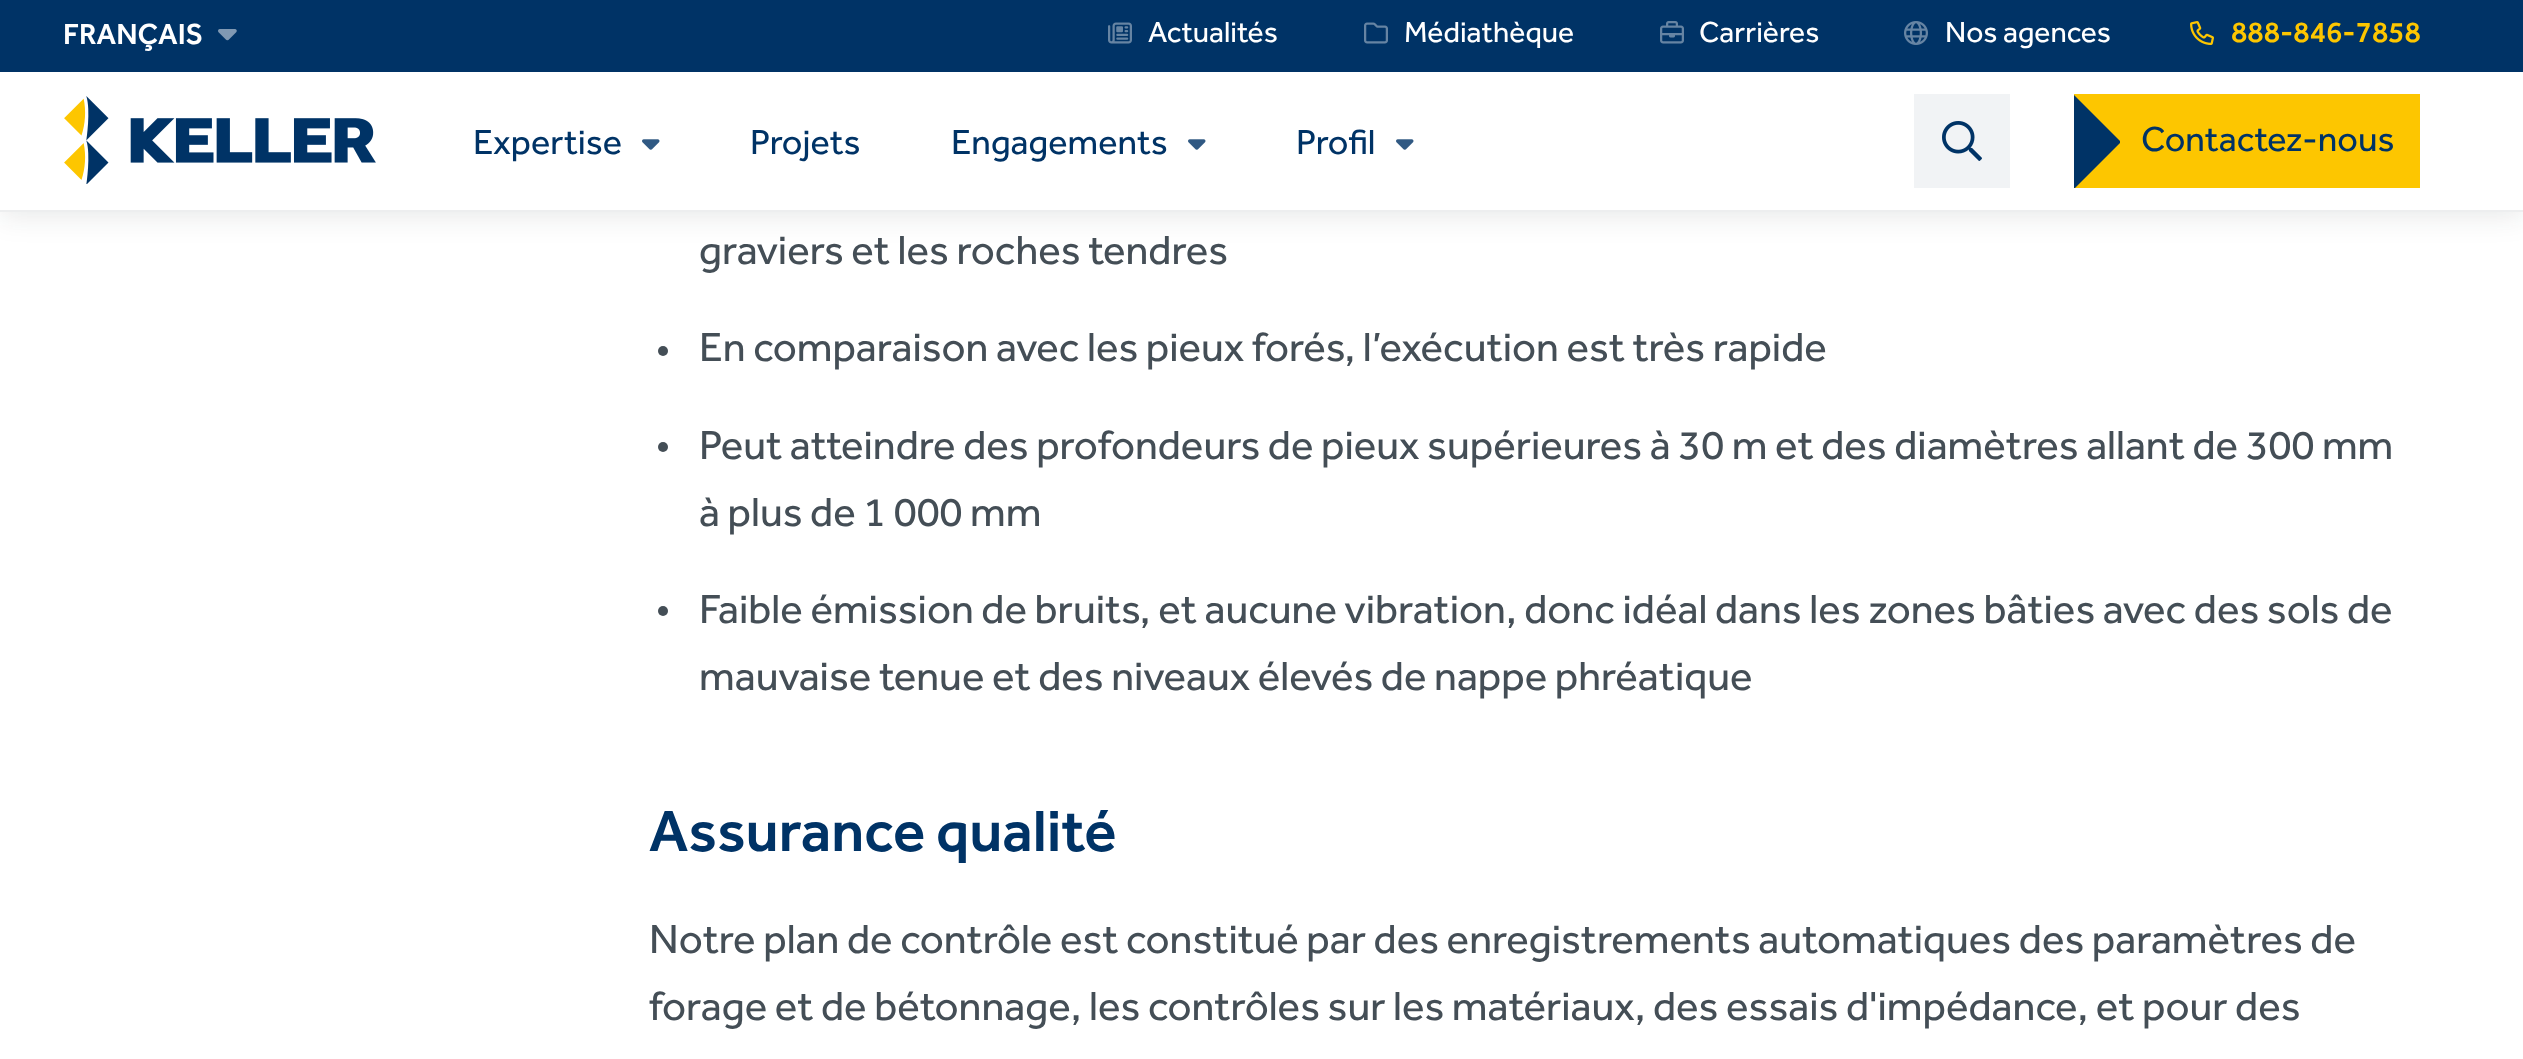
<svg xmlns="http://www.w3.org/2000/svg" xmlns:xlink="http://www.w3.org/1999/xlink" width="2523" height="1059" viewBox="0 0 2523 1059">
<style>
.cls-1{font:30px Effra;fill:#ffffff}
.cls-2{font:30px 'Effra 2';fill:#ffffff}
.cls-3{font:30px Effra;fill:#fdc600}
.cls-4{font:36px 'Effra 2';fill:#003366}
.cls-5{font:42px 'Effra 2';fill:#444e56}
.cls-6{font:60px Effra;fill:#003366}
</style>
<defs>
<clipPath id="clip1"><rect x="2074" y="94" width="46" height="94"/></clipPath>
</defs>
<rect width="100%" height="100%" fill="#ffffff"/>
<rect fill="#171d22" fill-opacity="0.1" filter="blur(14px)" x="0" y="4" width="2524" height="212"/>
<rect fill="#003366" x="0" y="0" width="2523" height="72"/>
<image xlink:href="image0.png" x="218" y="29" width="19" height="12"/>
<image xlink:href="image1.png" x="1108" y="22" width="24" height="22"/>
<image xlink:href="image2.png" x="1364" y="22" width="24" height="22"/>
<image xlink:href="image3.png" x="1660" y="21" width="24" height="23"/>
<image xlink:href="image4.png" x="1904" y="21" width="24" height="24"/>
<image xlink:href="image5.png" x="2190" y="21" width="24" height="24"/>
<rect fill="#ffffff" x="0" y="72" width="2523" height="138"/>
<rect fill="#edeeef" x="0" y="210" width="2523" height="2"/>
<image xlink:href="image6.png" x="64" y="96" width="312" height="88"/>
<image xlink:href="image7.png" x="642" y="139" width="18" height="11"/>
<image xlink:href="image7.png" x="1188" y="139" width="18" height="11"/>
<image xlink:href="image7.png" x="1396" y="139" width="18" height="11"/>
<rect fill="#f1f3f5" x="1914" y="94" width="96" height="94"/>
<image xlink:href="image8.png" x="1942" y="121" width="40" height="40"/>
<rect fill="#fdc600" x="2074" y="94" width="346" height="94"/>
<g clip-path="url(#clip1)">
<path fill="#003366" fill-rule="evenodd" d="M2025 142L2073 94L2121 142L2073 190Z"/>
</g>
<circle fill="#444e56" cx="663" cy="351" r="5"/>
<circle fill="#444e56" cx="663" cy="447" r="5"/>
<circle fill="#444e56" cx="663" cy="611" r="5"/>
<text class="cls-1" x="63" y="44">FRANÇAIS</text>
<text class="cls-2" x="1148" y="42">Actualités</text>
<text class="cls-2" x="1404" y="42">Médiathèque</text>
<text class="cls-2" x="1699" y="42">Carrières</text>
<text class="cls-2" x="1945" y="42">Nos agences</text>
<text class="cls-3" x="2231" y="42">888-846-7858</text>
<text class="cls-4" x="473" y="154">Expertise</text>
<text class="cls-4" x="750" y="154">Projets</text>
<text class="cls-4" x="951" y="154">Engagements</text>
<text class="cls-4" x="1296" y="154">Profil</text>
<text class="cls-4" x="2141" y="151">Contactez-nous</text>
<text class="cls-5" x="699" y="264">graviers et les roches tendres</text>
<text class="cls-5" x="699" y="361">En comparaison avec les pieux forés, l’exécution est très rapide</text>
<text class="cls-5"><tspan x="699" y="459">Peut atteindre des profondeurs de pieux supérieures à 30 m et des diamètres allant de 300 mm</tspan><tspan x="699" y="526">à plus de 1 000 mm</tspan></text>
<text class="cls-5"><tspan x="699" y="623">Faible émission de bruits, et aucune vibration, donc idéal dans les zones bâties avec des sols de</tspan><tspan x="699" y="690">mauvaise tenue et des niveaux élevés de nappe phréatique</tspan></text>
<text class="cls-6" x="649" y="851">Assurance qualité</text>
<text class="cls-5"><tspan x="649" y="953">Notre plan de contrôle est constitué par des enregistrements automatiques des paramètres de</tspan><tspan x="649" y="1020">forage et de bétonnage, les contrôles sur les matériaux, des essais d'impédance, et pour des</tspan></text>
</svg>
